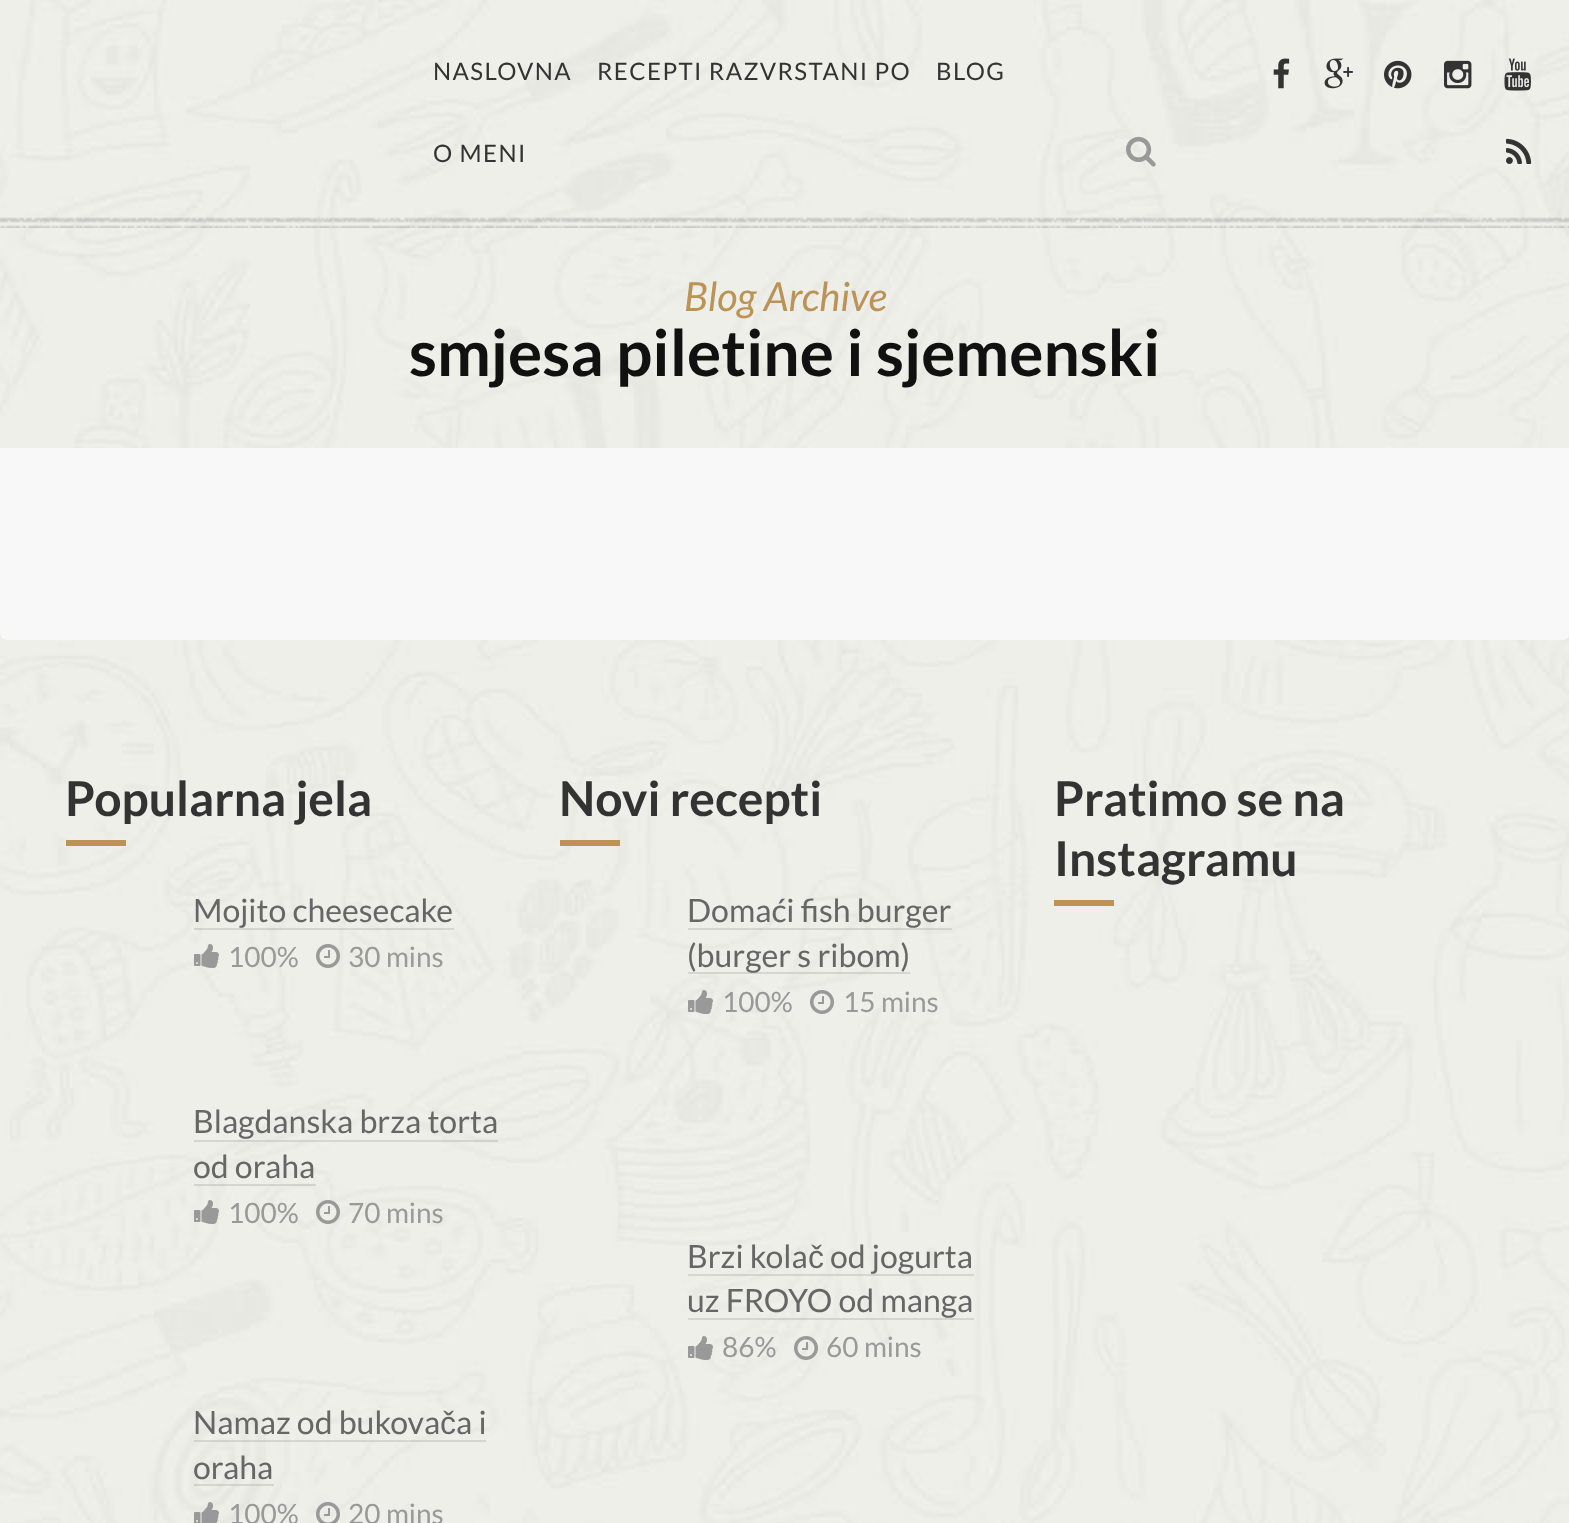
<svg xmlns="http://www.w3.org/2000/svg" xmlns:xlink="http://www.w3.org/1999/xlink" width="1569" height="1523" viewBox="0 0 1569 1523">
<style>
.cls-1{font:24px Lato;letter-spacing:1.4px;fill:#333333}
.cls-2{font:italic 40px Lato;fill:#bb9356}
.cls-3{font:bold 64px Lato;fill:#111111}
.cls-4{font:bold 48px Lato;fill:#333333}
.cls-5{font:32px Lato;fill:#666666}
.cls-6{font:28px Lato;fill:#999999}
.cls-7{font:32px Liberation Sans;fill:#666666}
</style>
<rect width="100%" height="100%" fill="#ffffff"/>
<image xlink:href="image0.png" x="0" y="0" width="1569" height="1523"/>
<image xlink:href="image1.png" x="0" y="217" width="1569" height="11"/>
<image xlink:href="image2.png" x="1126" y="136" width="30" height="31"/>
<image xlink:href="image3.png" x="1273" y="58" width="17" height="31"/>
<image xlink:href="image4.png" x="1324" y="58" width="29" height="31"/>
<image xlink:href="image5.png" x="1384" y="60" width="28" height="29"/>
<image xlink:href="image6.png" x="1444" y="60" width="28" height="29"/>
<image xlink:href="image7.png" x="1504" y="58" width="27" height="33"/>
<image xlink:href="image8.png" x="1506" y="138" width="26" height="26"/>
<path fill="#f8f8f8" d="M0 448H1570V632C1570 636.5 1566.5 640 1562 640H8C3.5 640 0 636.5 0 632Z"/>
<rect fill="#bb9356" x="66" y="840" width="60" height="6"/>
<rect fill="#000000" fill-opacity="0.1" x="194" y="928" width="260" height="2"/>
<image xlink:href="image9.png" x="194" y="944" width="25" height="24"/>
<image xlink:href="image10.png" x="316" y="944" width="24" height="24"/>
<rect fill="#000000" fill-opacity="0.1" x="194" y="1140" width="304" height="2"/>
<rect fill="#000000" fill-opacity="0.1" x="194" y="1184" width="122" height="2"/>
<image xlink:href="image11.png" x="194" y="1200" width="25" height="24"/>
<image xlink:href="image12.png" x="316" y="1200" width="24" height="24"/>
<rect fill="#000000" fill-opacity="0.1" x="194" y="1440" width="292" height="2"/>
<rect fill="#000000" fill-opacity="0.1" x="194" y="1484" width="80" height="2"/>
<image xlink:href="image13.png" x="194" y="1502" width="25" height="21"/>
<image xlink:href="image14.png" x="316" y="1502" width="24" height="21"/>
<rect fill="#bb9356" x="560" y="840" width="60" height="6"/>
<rect fill="#000000" fill-opacity="0.1" x="688" y="928" width="264" height="2"/>
<rect fill="#000000" fill-opacity="0.1" x="688" y="972" width="222" height="2"/>
<image xlink:href="image15.png" x="688" y="990" width="25" height="24"/>
<image xlink:href="image16.png" x="810" y="990" width="24" height="24"/>
<rect fill="#000000" fill-opacity="0.1" x="688" y="1274" width="286" height="2"/>
<rect fill="#000000" fill-opacity="0.1" x="688" y="1318" width="286" height="2"/>
<image xlink:href="image17.png" x="688" y="1336" width="25" height="24"/>
<image xlink:href="image18.png" x="794" y="1336" width="24" height="24"/>
<rect fill="#bb9356" x="1054" y="900" width="60" height="6"/>
<text class="cls-1" x="433" y="80">NASLOVNA</text>
<text class="cls-1" x="597" y="80">RECEPTI RAZVRSTANI PO</text>
<text class="cls-1" x="936" y="80">BLOG</text>
<text class="cls-1" x="433" y="162">O MENI</text>
<text class="cls-2" x="684" y="311">Blog Archive</text>
<text class="cls-3" x="409" y="376">smjesa piletine i sjemenski</text>
<text class="cls-4" x="65" y="816">Popularna jela</text>
<text class="cls-5" x="193" y="922">Mojito cheesecake</text>
<text class="cls-6" x="228" y="967">100%</text>
<text class="cls-6" x="348" y="967">30 mins</text>
<text class="cls-5"><tspan x="193" y="1133">Blagdanska brza torta</tspan><tspan x="193" y="1178">od oraha</tspan></text>
<text class="cls-6" x="228" y="1223">100%</text>
<text class="cls-6" x="348" y="1223">70 mins</text>
<text class="cls-5" x="193" y="1434">Namaz od bukova</text>
<text class="cls-7" x="440" y="1434">č</text>
<text class="cls-5" x="456" y="1434">a i</text>
<text class="cls-5" x="193" y="1479">oraha</text>
<text class="cls-6" x="228" y="1524">100%</text>
<text class="cls-6" x="348" y="1524">20 mins</text>
<text class="cls-4" x="559" y="816">Novi recepti</text>
<text class="cls-5"><tspan x="687" y="922">Domaći fish burger</tspan><tspan x="687" y="967">(burger s ribom)</tspan></text>
<text class="cls-6" x="722" y="1012">100%</text>
<text class="cls-6" x="843" y="1012">15 mins</text>
<text class="cls-5" x="687" y="1268">Brzi kola</text>
<text class="cls-7" x="808" y="1268">č</text>
<text class="cls-5" x="830" y="1268">od jogurta</text>
<text class="cls-5" x="687" y="1312">uz FROYO od manga</text>
<text class="cls-6" x="722" y="1357">86%</text>
<text class="cls-6" x="826" y="1357">60 mins</text>
<text class="cls-4"><tspan x="1054" y="816">Pratimo se na</tspan><tspan x="1054" y="876">Instagramu</tspan></text>
</svg>
